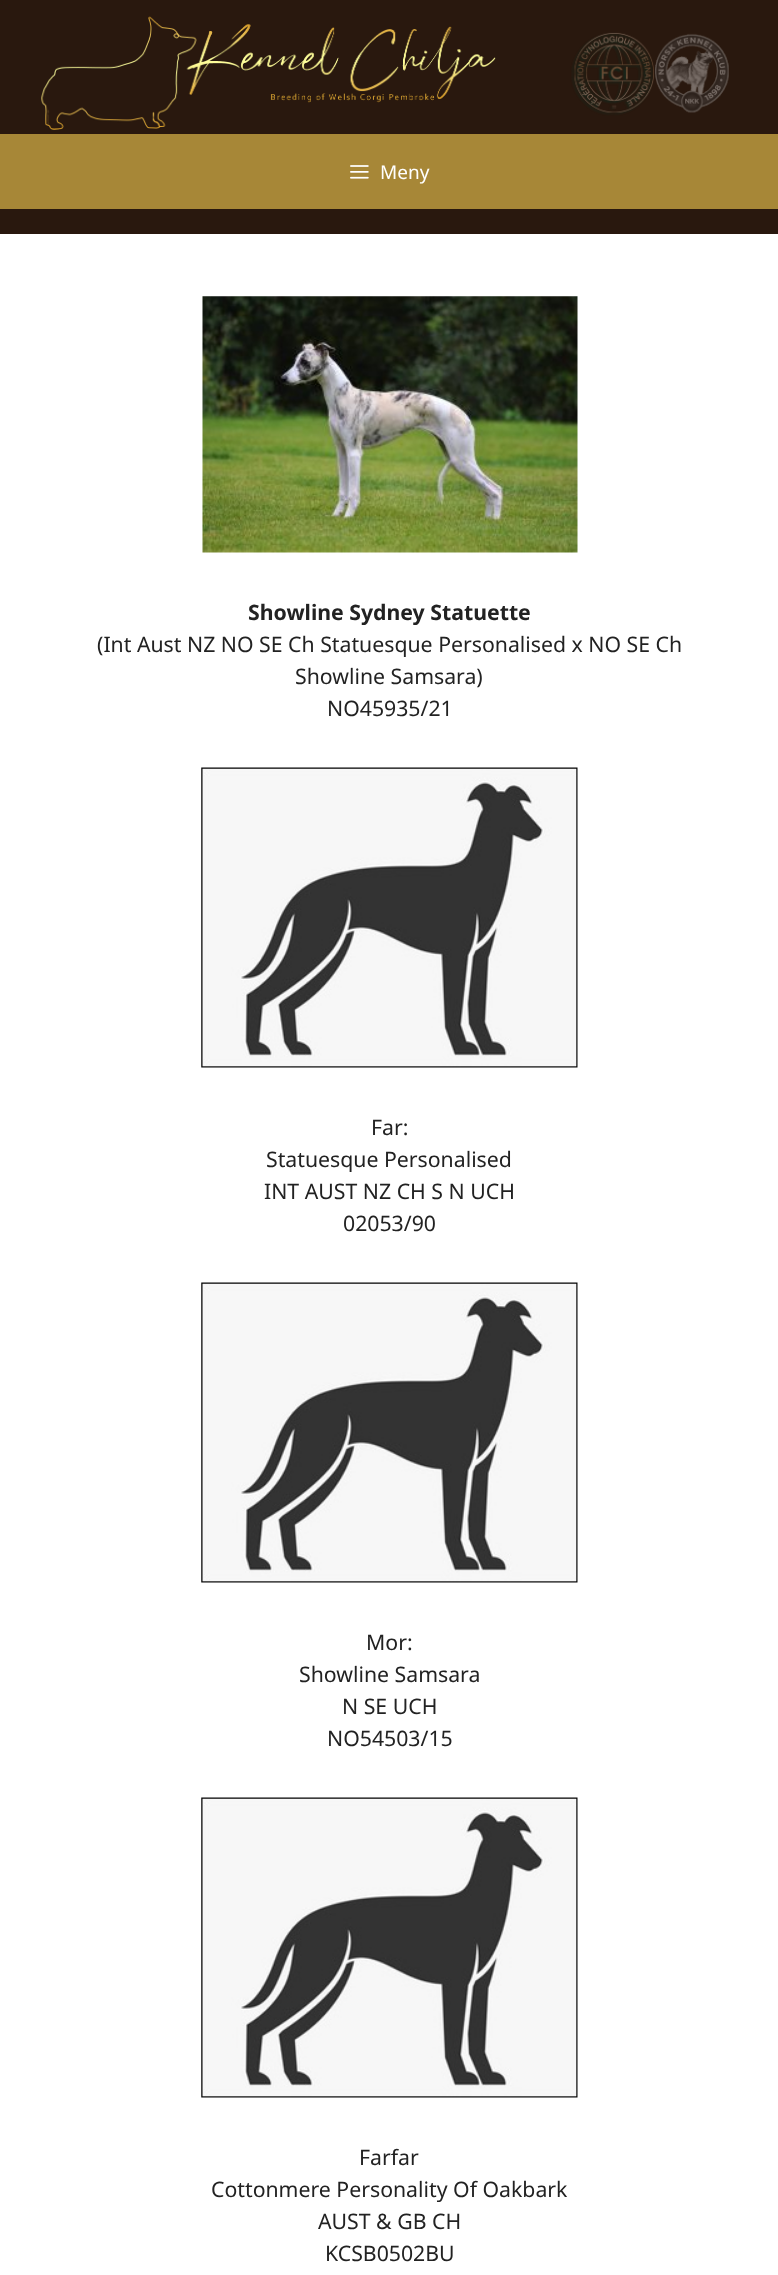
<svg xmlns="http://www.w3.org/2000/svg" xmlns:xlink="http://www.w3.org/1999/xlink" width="778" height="2275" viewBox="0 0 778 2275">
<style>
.cls-1{font:19px Noto Sans;fill:#ffffff}
.cls-2{font:bold 21.25px Noto Sans;fill:#222222}
.cls-3{font:21.25px Noto Sans;fill:#222222}
</style>
<rect width="100%" height="100%" fill="#29180e"/>
<image xlink:href="image0.png" x="41" y="16" width="688" height="115"/>
<rect fill="#a78737" x="0" y="134" width="778" height="75"/>
<image xlink:href="image1.png" x="350" y="165" width="19" height="14"/>
<rect fill="#ffffff" x="0" y="234" width="778" height="2041"/>
<image xlink:href="image2.png" x="202" y="296" width="376" height="257"/>
<image xlink:href="image3.png" x="201" y="767" width="377" height="301"/>
<image xlink:href="image3.png" x="201" y="1282" width="377" height="301"/>
<image xlink:href="image3.png" x="201" y="1797" width="377" height="301"/>
<text class="cls-1" x="380" y="179">Meny</text>
<text class="cls-2" x="248" y="620">Showline Sydney Statuette</text>
<text class="cls-3" x="97" y="652">(Int Aust NZ NO SE Ch Statuesque Personalised x NO SE Ch</text>
<text class="cls-3" x="295" y="684">Showline Samsara)</text>
<text class="cls-3" x="327" y="716">NO45935/21</text>
<text class="cls-3" x="371" y="1135">Far:</text>
<text class="cls-3" x="266" y="1167">Statuesque Personalised</text>
<text class="cls-3" x="264" y="1199">INT AUST NZ CH S N UCH</text>
<text class="cls-3" x="343" y="1231">02053/90</text>
<text class="cls-3" x="366" y="1650">Mor:</text>
<text class="cls-3" x="299" y="1682">Showline Samsara</text>
<text class="cls-3" x="342" y="1714">N SE UCH</text>
<text class="cls-3" x="327" y="1746">NO54503/15</text>
<text class="cls-3" x="359" y="2165">Farfar</text>
<text class="cls-3" x="211" y="2197">Cottonmere Personality Of Oakbark</text>
<text class="cls-3" x="318" y="2229">AUST &amp; GB CH</text>
<text class="cls-3" x="325" y="2261">KCSB0502BU</text>
</svg>
